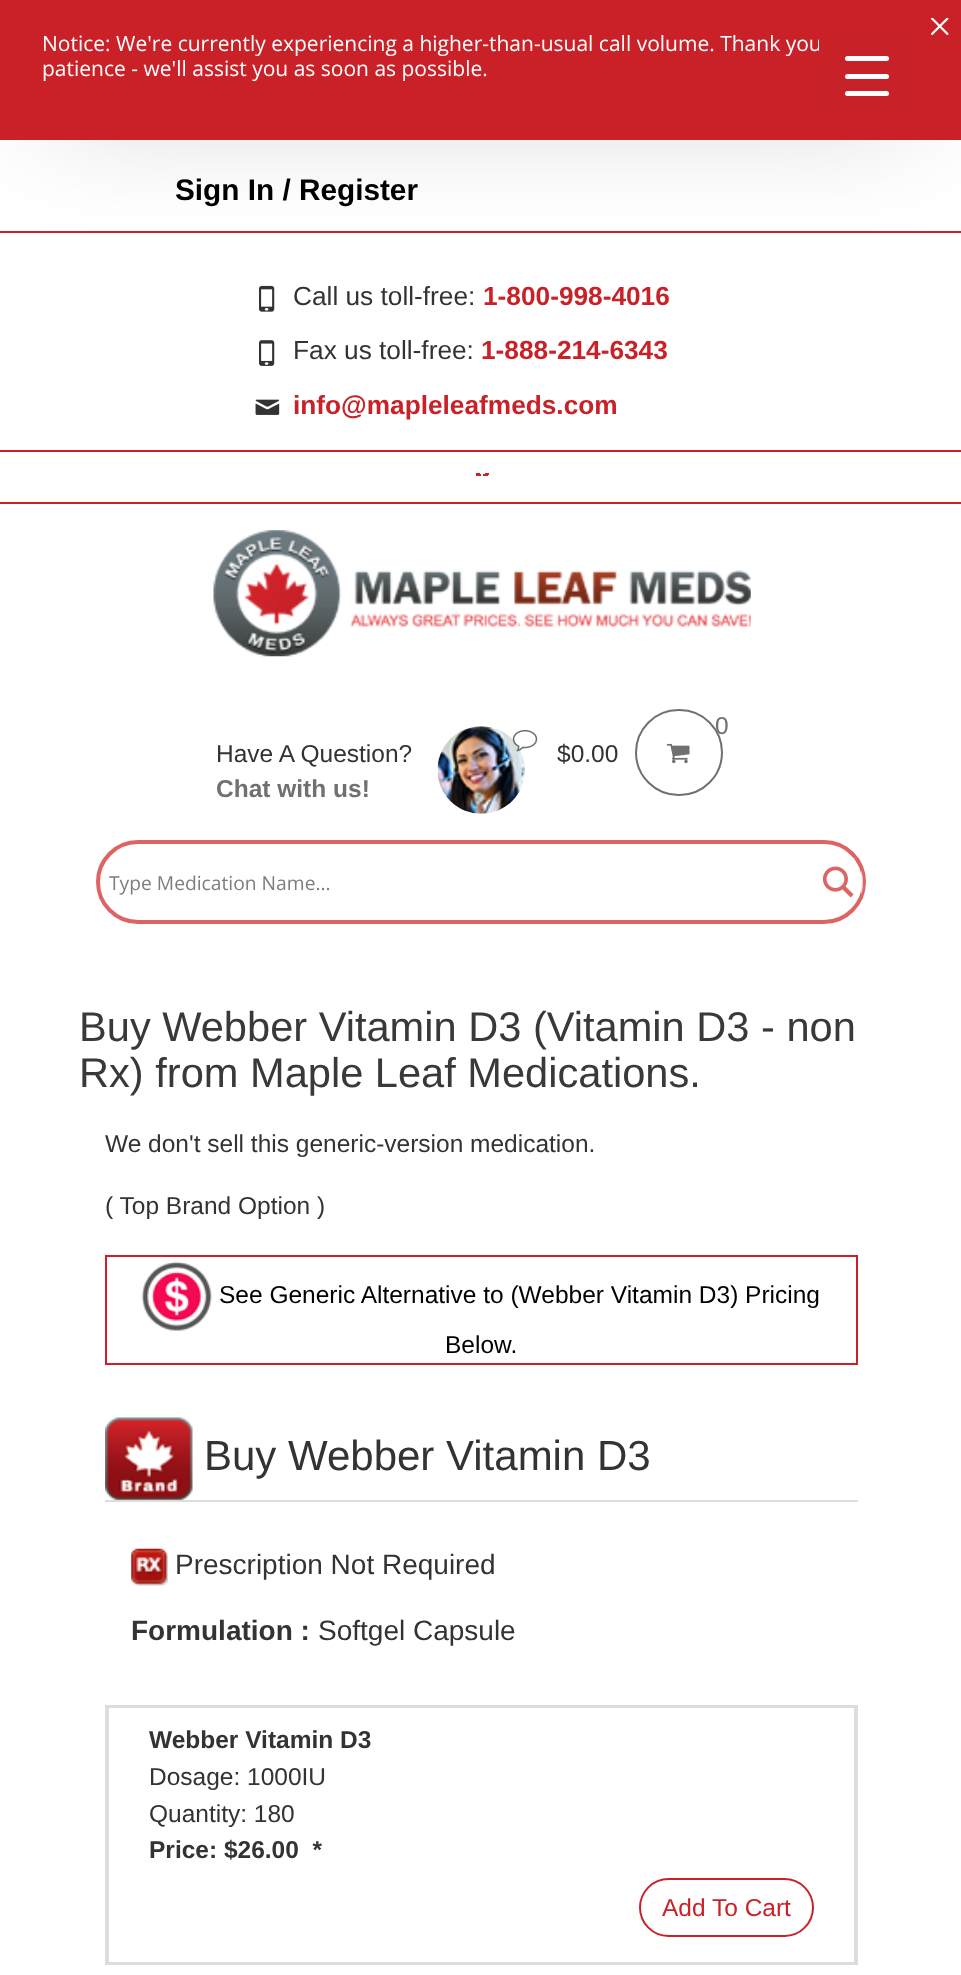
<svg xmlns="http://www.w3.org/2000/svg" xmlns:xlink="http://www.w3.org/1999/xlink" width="961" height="1975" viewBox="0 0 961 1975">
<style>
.cls-1{font:21px Open Sans;fill:#ffffff}
.cls-2{font:bold 29.75px Liberation Sans;fill:#000000}
.cls-3{font:26.25px Liberation Sans;fill:#333333}
.cls-4{font:bold 26.25px Liberation Sans;fill:#c82228}
.cls-5{font:24.5px Liberation Sans;fill:#333333}
.cls-6{font:bold 24.5px Liberation Sans;fill:#707070}
.cls-7{font:24.5px Liberation Sans;fill:#707070}
.cls-8{font:19.25px Open Sans;fill:#7d7d7d}
.cls-9{font:41.6px Liberation Sans;fill:#393939}
.cls-10{font:24.5px Liberation Sans;fill:#000000}
.cls-11{font:42px Liberation Sans;fill:#333333}
.cls-12{font:28px Liberation Sans;fill:#333333}
.cls-13{font:bold 28px Liberation Sans;fill:#333333}
.cls-14{font:bold 24.5px Liberation Sans;fill:#333333}
.cls-15{font:24.5px Liberation Sans;fill:#c82228}
</style>
<defs>
<clipPath id="clip1"><rect x="814" y="858" width="49" height="49"/></clipPath>
</defs>
<rect width="100%" height="100%" fill="#ffffff"/>
<rect fill="#c82228" x="0" y="231" width="961" height="2"/>
<rect fill="#808080" filter="blur(61px)" x="53" y="53" width="857" height="35"/>
<rect fill="#ca2128" x="0" y="0" width="961" height="140"/>
<image xlink:href="image0.png" x="931" y="18" width="18" height="17"/>
<rect fill="#c82228" x="0" y="450" width="961" height="2"/>
<image xlink:href="image1.png" x="259" y="285" width="16" height="27"/>
<image xlink:href="image2.png" x="259" y="340" width="16" height="26"/>
<image xlink:href="image3.png" x="255" y="399" width="25" height="16"/>
<rect fill="#c82228" x="0" y="502" width="961" height="2"/>
<rect fill="#c82228" x="483" y="474" width="5" height="2"/>
<rect fill="#c82228" x="485" y="473" width="4" height="2"/>
<rect fill="#c82228" x="476" y="473" width="4" height="1"/>
<rect fill="#c82228" x="476" y="474" width="5" height="2"/>
<image xlink:href="image4.png" x="213" y="530" width="538" height="127"/>
<image xlink:href="image5.png" x="437" y="726" width="88" height="88"/>
<image xlink:href="image6.png" x="512" y="729" width="26" height="23"/>
<rect fill="none" stroke="#707070" stroke-width="2" x="636" y="710" width="86" height="85" rx="42.5"/>
<image xlink:href="image7.png" x="666" y="743" width="24" height="21"/>
<rect fill="none" stroke="#de6464" stroke-width="4" x="98" y="842" width="766" height="80" rx="40"/>
<g clip-path="url(#clip1)">
<path fill="#ffffff" fill-opacity="0.64" fill-rule="evenodd" d="M812 859V908H853C846 916 836 921 824 921H640V844H824C837 844 848 850 855 859ZM861 895C864 887 864 878 861 870Z"/>
</g>
<image xlink:href="image8.png" x="822" y="866" width="32" height="32"/>
<rect fill="none" stroke="#c92128" stroke-width="2" x="106" y="1256" width="751" height="108"/>
<image xlink:href="image9.png" x="141" y="1261" width="71" height="70"/>
<rect fill="#dcdcdc" x="105" y="1500" width="753" height="2"/>
<image xlink:href="image10.png" x="105" y="1417" width="88" height="83"/>
<image xlink:href="image11.png" x="131" y="1548" width="37" height="38"/>
<rect fill="none" stroke="#dddddd" stroke-width="2" x="106" y="1706" width="751" height="258"/>
<rect fill="none" stroke="#dcdcdc" stroke-width="2" x="108" y="1707" width="747" height="256"/>
<rect fill="none" stroke="#c82227" stroke-width="2" x="640" y="1879" width="173" height="57" rx="28.5"/>
<text class="cls-1"><tspan x="42" y="51">Notice: We're currently experiencing a higher-than-usual call volume. Thank you</tspan><tspan x="42" y="76">patience - we'll assist you as soon as possible.</tspan></text>
<rect fill="#c82228" x="819" y="26" width="96" height="97" rx="9"/>
<rect fill="#ffffff" x="845" y="74" width="44" height="5" rx="2.5"/>
<rect fill="#ffffff" x="845" y="56" width="44" height="5" rx="2.5"/>
<rect fill="#ffffff" x="845" y="91" width="44" height="5" rx="2.5"/>
<text class="cls-2" x="175" y="200">Sign In / Register</text>
<text class="cls-3" x="293" y="305">Call us toll-free:</text>
<text class="cls-4" x="483" y="305">1-800-998-4016</text>
<text class="cls-3" x="293" y="359">Fax us toll-free:</text>
<text class="cls-4" x="481" y="359">1-888-214-6343</text>
<text class="cls-4" x="293" y="414">info@mapleleafmeds.com</text>
<text class="cls-5" x="216" y="762">Have A Question?</text>
<text class="cls-6" x="216" y="797">Chat with us!</text>
<text class="cls-7" x="715" y="734">0</text>
<text class="cls-5" x="557" y="762">$0.00</text>
<text class="cls-8" x="109" y="890">Type Medication Name...</text>
<text class="cls-9"><tspan x="79" y="1041">Buy Webber Vitamin D3 (Vitamin D3 - non</tspan><tspan x="79" y="1087">Rx) from Maple Leaf Medications.</tspan></text>
<text class="cls-5" x="105" y="1152">We don't sell this generic-version medication.</text>
<text class="cls-5" x="105" y="1214">( Top Brand Option )</text>
<text class="cls-10" x="219" y="1303">See Generic Alternative to (Webber Vitamin D3) Pricing</text>
<text class="cls-10" x="445" y="1353">Below.</text>
<text class="cls-11" x="204" y="1470">Buy Webber Vitamin D3</text>
<text class="cls-12" x="175" y="1574">Prescription Not Required</text>
<text class="cls-13" x="131" y="1640">Formulation :</text>
<text class="cls-12" x="318" y="1640">Softgel Capsule</text>
<text class="cls-14" x="149" y="1748">Webber Vitamin D3</text>
<text class="cls-5"><tspan x="149" y="1785">Dosage: 1000IU</tspan><tspan x="149" y="1822">Quantity: 180</tspan></text>
<text class="cls-14" xml:space="preserve" x="149" y="1858">Price: $26.00  *</text>
<text class="cls-15" x="662" y="1916">Add To Cart</text>
</svg>
